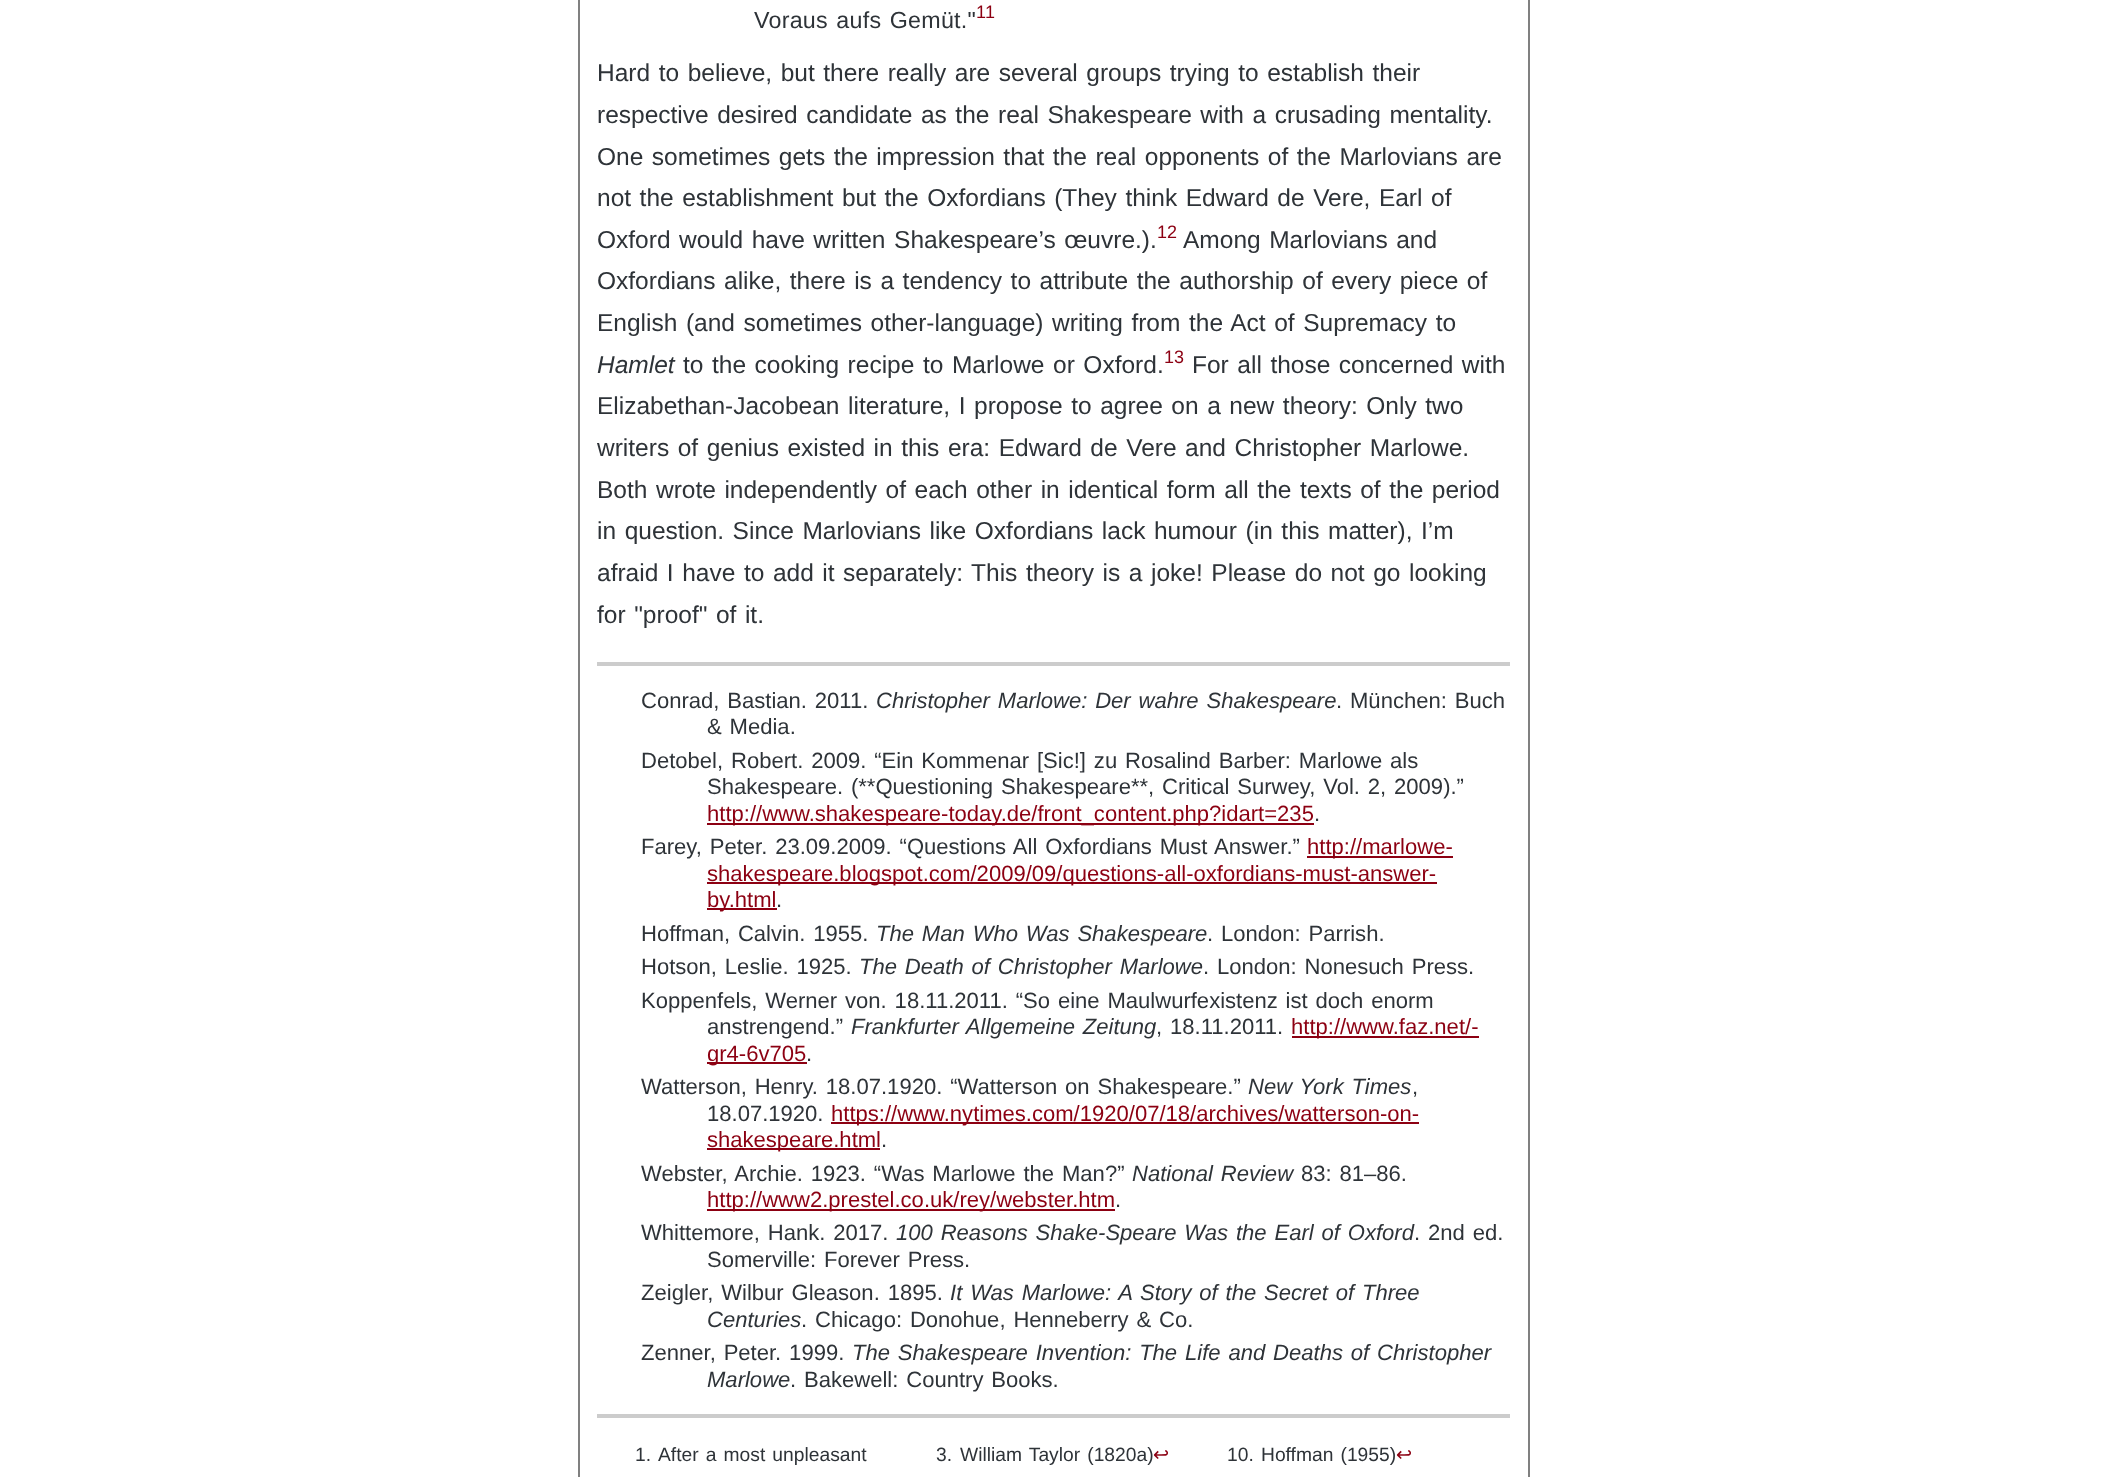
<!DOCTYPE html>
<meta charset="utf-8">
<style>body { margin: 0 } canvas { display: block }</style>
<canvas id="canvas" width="2107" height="1477"></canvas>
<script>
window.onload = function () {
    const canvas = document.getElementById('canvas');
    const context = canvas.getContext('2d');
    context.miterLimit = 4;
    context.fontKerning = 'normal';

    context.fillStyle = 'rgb(255, 255, 255)';
    context.fillRect(0, 0, 2107, 1477);
    context.fillStyle = 'rgb(128, 128, 128)';
    context.fillRect(1528, 0, 2, 1477);
    context.fillRect(578, 0, 2, 1477);
    context.fillStyle = 'rgb(204, 204, 204)';
    context.fillRect(597, 662, 913, 4);
    context.fillStyle = 'rgb(140, 0, 18)';
    context.fillRect(707, 823, 607, 2);
    context.fillRect(1307, 856, 146, 2);
    context.fillRect(707, 882, 730, 2);
    context.fillRect(707, 908, 70, 2);
    context.fillRect(1292, 1036, 187, 2);
    context.fillRect(707, 1062, 100, 2);
    context.fillRect(831, 1122, 588, 2);
    context.fillRect(707, 1148, 173, 2);
    context.fillRect(707, 1209, 408, 2);
    context.fillStyle = 'rgb(204, 204, 204)';
    context.fillRect(597, 1414, 913, 4);
    context.letterSpacing = '0.25px';
    context.wordSpacing = '1.75px';
    context.font = '23.25px Liberation Sans';
    context.fillStyle = 'rgb(46, 51, 56)';
    context.fillText('Voraus aufs Gemüt."', 754, 28);
    context.wordSpacing = '0px';
    context.font = '18px Liberation Sans';
    context.fillStyle = 'rgb(140, 0, 18)';
    context.fillText('11', 976, 18);
    context.letterSpacing = '0px';
    context.wordSpacing = '1.75px';
    context.font = '24.5px Liberation Sans';
    context.fillStyle = 'rgb(46, 51, 56)';
    context.fillText('Hard to believe, but there really are several groups trying to establish their', 597, 81);
    context.fillText('respective desired candidate as the real Shakespeare with a crusading mentality.', 597, 123);
    context.fillText('One sometimes gets the impression that the real opponents of the Marlovians are', 597, 165);
    context.fillText('not the establishment but the Oxfordians (They think Edward de Vere, Earl of', 597, 206);
    context.fillText('Oxford would have written Shakespeare’s œuvre.).', 597, 248);
    context.wordSpacing = '0px';
    context.font = '18px Liberation Sans';
    context.fillStyle = 'rgb(140, 0, 18)';
    context.fillText('12', 1157, 238);
    context.wordSpacing = '1.75px';
    context.font = '24.5px Liberation Sans';
    context.fillStyle = 'rgb(46, 51, 56)';
    context.fillText('Among Marlovians and', 1183, 248);
    context.fillText('Oxfordians alike, there is a tendency to attribute the authorship of every piece of', 597, 289);
    context.fillText('English (and sometimes other-language) writing from the Act of Supremacy to', 597, 331);
    context.wordSpacing = '0px';
    context.font = 'italic 24.5px Liberation Sans';
    context.fillText('Hamlet', 597, 373);
    context.wordSpacing = '1.75px';
    context.font = '24.5px Liberation Sans';
    context.fillText('to the cooking recipe to Marlowe or Oxford.', 683, 373);
    context.wordSpacing = '0px';
    context.font = '18px Liberation Sans';
    context.fillStyle = 'rgb(140, 0, 18)';
    context.fillText('13', 1164, 363);
    context.wordSpacing = '1.75px';
    context.font = '24.5px Liberation Sans';
    context.fillStyle = 'rgb(46, 51, 56)';
    context.fillText('For all those concerned with', 1192, 373);
    context.fillText('Elizabethan-Jacobean literature, I propose to agree on a new theory: Only two', 597, 414);
    context.fillText('writers of genius existed in this era: Edward de Vere and Christopher Marlowe.', 597, 456);
    context.fillText('Both wrote independently of each other in identical form all the texts of the period', 597, 498);
    context.fillText('in question. Since Marlovians like Oxfordians lack humour (in this matter), I’m', 597, 539);
    context.fillText('afraid I have to add it separately: This theory is a joke! Please do not go looking', 597, 581);
    context.fillText('for "proof" of it.', 597, 623);
    context.font = '22.05px Liberation Sans';
    context.fillText('Conrad, Bastian. 2011.', 641, 708);
    context.font = 'italic 22.05px Liberation Sans';
    context.fillText('Christopher Marlowe: Der wahre Shakespeare', 876, 708);
    context.font = '22.05px Liberation Sans';
    context.fillText('. München: Buch', 1336, 708);
    context.fillText('& Media.', 707, 734);
    context.fillText('Detobel, Robert. 2009. “Ein Kommenar [Sic!] zu Rosalind Barber: Marlowe als', 641, 768);
    context.fillText('Shakespeare. (**Questioning Shakespeare**, Critical Surwey, Vol. 2, 2009).”', 707, 794);
    context.wordSpacing = '0px';
    context.fillStyle = 'rgb(140, 0, 18)';
    context.fillText('http://www.shakespeare-today.de/front_content.php?idart=235', 707, 821);
    context.fillStyle = 'rgb(46, 51, 56)';
    context.fillText('.', 1314, 821);
    context.wordSpacing = '1.75px';
    context.fillText('Farey, Peter. 23.09.2009. “Questions All Oxfordians Must Answer.”', 641, 854);
    context.wordSpacing = '0px';
    context.fillStyle = 'rgb(140, 0, 18)';
    context.fillText('http://marlowe-', 1307, 854);
    context.fillText('shakespeare.blogspot.com/2009/09/questions-all-oxfordians-must-answer-', 707, 881);
    context.fillText('by.html', 707, 907);
    context.fillStyle = 'rgb(46, 51, 56)';
    context.fillText('.', 776, 907);
    context.wordSpacing = '1.75px';
    context.fillText('Hoffman, Calvin. 1955.', 641, 941);
    context.font = 'italic 22.05px Liberation Sans';
    context.fillText('The Man Who Was Shakespeare', 876, 941);
    context.font = '22.05px Liberation Sans';
    context.fillText('. London: Parrish.', 1207, 941);
    context.fillText('Hotson, Leslie. 1925.', 641, 974);
    context.font = 'italic 22.05px Liberation Sans';
    context.fillText('The Death of Christopher Marlowe', 859, 974);
    context.font = '22.05px Liberation Sans';
    context.fillText('. London: Nonesuch Press.', 1203, 974);
    context.fillText('Koppenfels, Werner von. 18.11.2011. “So eine Maulwurfexistenz ist doch enorm', 641, 1008);
    context.wordSpacing = '0px';
    context.fillText('anstrengend.”', 707, 1034);
    context.wordSpacing = '1.75px';
    context.font = 'italic 22.05px Liberation Sans';
    context.fillText('Frankfurter Allgemeine Zeitung', 851, 1034);
    context.font = '22.05px Liberation Sans';
    context.fillText(', 18.11.2011.', 1156, 1034);
    context.wordSpacing = '0px';
    context.fillStyle = 'rgb(140, 0, 18)';
    context.fillText('http://www.faz.net/-', 1291, 1034);
    context.fillText('gr4-6v705', 707, 1061);
    context.fillStyle = 'rgb(46, 51, 56)';
    context.fillText('.', 806, 1061);
    context.wordSpacing = '1.75px';
    context.fillText('Watterson, Henry. 18.07.1920. “Watterson on Shakespeare.”', 641, 1094);
    context.font = 'italic 22.05px Liberation Sans';
    context.fillText('New York Times', 1248, 1094);
    context.wordSpacing = '0px';
    context.font = '22.05px Liberation Sans';
    context.fillText(',', 1412, 1094);
    context.fillText('18.07.1920.', 707, 1121);
    context.fillStyle = 'rgb(140, 0, 18)';
    context.fillText('https://www.nytimes.com/1920/07/18/archives/watterson-on-', 831, 1121);
    context.fillText('shakespeare.html', 707, 1147);
    context.fillStyle = 'rgb(46, 51, 56)';
    context.fillText('.', 881, 1147);
    context.wordSpacing = '1.75px';
    context.fillText('Webster, Archie. 1923. “Was Marlowe the Man?”', 641, 1181);
    context.font = 'italic 22.05px Liberation Sans';
    context.fillText('National Review', 1132, 1181);
    context.font = '22.05px Liberation Sans';
    context.fillText('83: 81–86.', 1301, 1181);
    context.wordSpacing = '0px';
    context.fillStyle = 'rgb(140, 0, 18)';
    context.fillText('http://www2.prestel.co.uk/rey/webster.htm', 707, 1207);
    context.fillStyle = 'rgb(46, 51, 56)';
    context.fillText('.', 1115, 1207);
    context.wordSpacing = '1.75px';
    context.fillText('Whittemore, Hank. 2017.', 641, 1240);
    context.font = 'italic 22.05px Liberation Sans';
    context.fillText('100 Reasons Shake-Speare Was the Earl of Oxford', 896, 1240);
    context.font = '22.05px Liberation Sans';
    context.fillText('. 2nd ed.', 1414, 1240);
    context.fillText('Somerville: Forever Press.', 707, 1267);
    context.fillText('Zeigler, Wilbur Gleason. 1895.', 641, 1300);
    context.font = 'italic 22.05px Liberation Sans';
    context.fillText('It Was Marlowe: A Story of the Secret of Three', 950, 1300);
    context.wordSpacing = '0px';
    context.fillText('Centuries', 707, 1327);
    context.wordSpacing = '1.75px';
    context.font = '22.05px Liberation Sans';
    context.fillText('. Chicago: Donohue, Henneberry & Co.', 801, 1327);
    context.fillText('Zenner, Peter. 1999.', 641, 1360);
    context.font = 'italic 22.05px Liberation Sans';
    context.fillText('The Shakespeare Invention: The Life and Deaths of Christopher', 852, 1360);
    context.wordSpacing = '0px';
    context.fillText('Marlowe', 707, 1387);
    context.wordSpacing = '1.75px';
    context.font = '22.05px Liberation Sans';
    context.fillText('. Bakewell: Country Books.', 790, 1387);
    context.wordSpacing = '0px';
    context.font = '19.25px Liberation Sans';
    context.fillText('1.', 635, 1461);
    context.wordSpacing = '1.75px';
    context.fillText('After a most unpleasant', 658, 1461);
    context.wordSpacing = '0px';
    context.fillText('3.', 936, 1461);
    context.wordSpacing = '1.75px';
    context.fillText('William Taylor (1820a)', 960, 1461);
    context.wordSpacing = '0px';
    context.font = '19.25px DejaVu Sans';
    context.fillStyle = 'rgb(140, 0, 18)';
    context.fillText('↩︎', 1153, 1461);
    context.font = '19.25px Liberation Sans';
    context.fillStyle = 'rgb(46, 51, 56)';
    context.fillText('10.', 1227, 1461);
    context.wordSpacing = '1.75px';
    context.fillText('Hoffman (1955)', 1261, 1461);
    context.wordSpacing = '0px';
    context.font = '19.25px DejaVu Sans';
    context.fillStyle = 'rgb(140, 0, 18)';
    context.fillText('↩︎', 1396, 1461);
};
</script>
